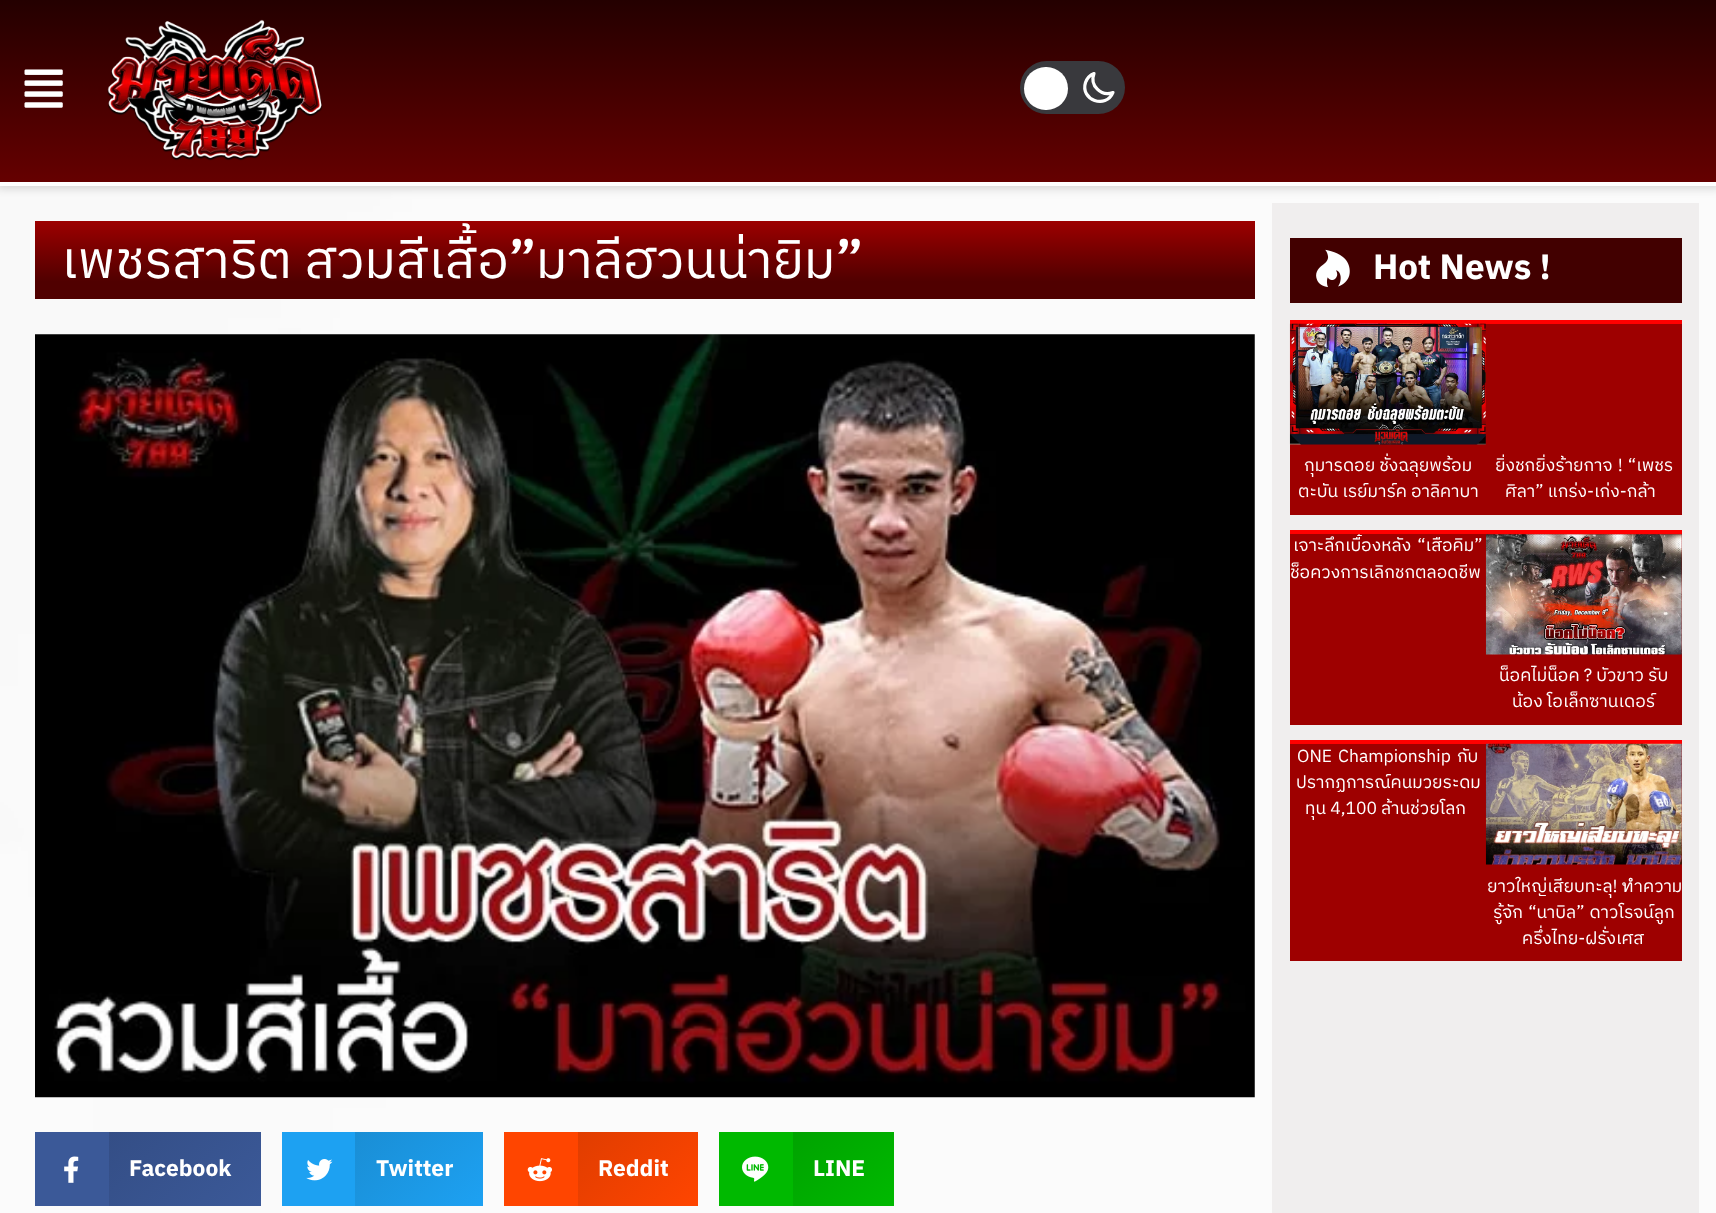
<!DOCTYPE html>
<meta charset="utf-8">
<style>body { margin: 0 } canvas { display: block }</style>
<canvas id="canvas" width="1716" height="1213"></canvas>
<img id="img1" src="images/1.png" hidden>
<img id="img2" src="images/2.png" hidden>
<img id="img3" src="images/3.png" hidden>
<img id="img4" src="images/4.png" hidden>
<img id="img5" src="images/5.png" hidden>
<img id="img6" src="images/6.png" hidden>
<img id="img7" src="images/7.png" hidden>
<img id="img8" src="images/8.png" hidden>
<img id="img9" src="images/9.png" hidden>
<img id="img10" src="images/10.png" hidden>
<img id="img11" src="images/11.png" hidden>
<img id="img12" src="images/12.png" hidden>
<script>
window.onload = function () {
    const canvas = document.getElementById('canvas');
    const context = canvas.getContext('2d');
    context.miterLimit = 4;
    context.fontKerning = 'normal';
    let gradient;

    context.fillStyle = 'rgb(255, 255, 255)';
    context.fillRect(0, 0, 1716, 1213);
    context.drawImage(document.getElementById('img1'), 0, 186, 1716, 1027);
    context.fillStyle = 'rgba(0, 0, 0, 0.5)';
    context.filter = 'blur(4.5px)';
    context.beginPath();
    context.rect(-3, -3, 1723, 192);
    context.fill();
    context.filter = 'none';
    gradient = context.createLinearGradient(858, 0, 858, 182);
    gradient.addColorStop(0, 'rgb(36, 0, 0)');
    gradient.addColorStop(1, 'rgb(101, 0, 0)');
    context.fillStyle = gradient;
    context.fillRect(0, 0, 1716, 182);
    context.fillStyle = 'rgb(255, 255, 255)';
    context.fillRect(0, 182, 1716, 4);
    context.drawImage(document.getElementById('img2'), 24, 69, 39, 39);
    context.drawImage(document.getElementById('img3'), 107, 19, 216, 142);
    context.fillStyle = 'rgb(57, 57, 61)';
    context.beginPath();
    context.roundRect(1020, 61, 105, 53, 26.5);
    context.fill();
    context.fillStyle = 'rgb(255, 255, 255)';
    context.beginPath();
    context.roundRect(1024, 67, 44, 43, 21.5);
    context.fill();
    context.beginPath();
    context.moveTo(1113, 92.5);
    context.bezierCurveTo(1101, 97, 1089.5, 85.5, 1094, 73.5);
    context.bezierCurveTo(1090, 75, 1087, 78.5, 1085.5, 82.5);
    context.bezierCurveTo(1080, 100, 1106, 109.5, 1113, 92.5);
    context.closePath();
    context.strokeStyle = 'rgb(255, 255, 255)';
    context.lineWidth = 3.2;
    context.lineCap = 'round';
    context.lineJoin = 'round';
    context.stroke();
    context.fillStyle = 'rgba(255, 255, 255, 0.71)';
    context.fillRect(0, 186, 1716, 1027);
    gradient = context.createLinearGradient(645, 220, 645, 299);
    gradient.addColorStop(0, 'rgb(158, 0, 0)');
    gradient.addColorStop(0.78, 'rgb(80, 0, 0)');
    context.fillStyle = gradient;
    context.fillRect(35, 221, 1220, 78);
    context.drawImage(document.getElementById('img4'), 35, 334, 1220, 764);
    context.fillStyle = 'rgb(59, 89, 152)';
    context.fillRect(35, 1132, 74, 74);
    context.drawImage(document.getElementById('img5'), 64, 1156, 15, 27);
    gradient = context.createLinearGradient(128, 1113, 241, 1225);
    gradient.addColorStop(0, 'rgb(52, 78, 134)');
    gradient.addColorStop(1, 'rgb(59, 89, 152)');
    context.fillStyle = gradient;
    context.fillRect(109, 1132, 152, 74);
    context.fillStyle = 'rgb(29, 161, 242)';
    context.fillRect(282, 1132, 73, 74);
    context.drawImage(document.getElementById('img6'), 306, 1159, 27, 22);
    gradient = context.createLinearGradient(369, 1119, 469, 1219);
    gradient.addColorStop(0, 'rgb(26, 142, 213)');
    gradient.addColorStop(1, 'rgb(29, 161, 242)');
    context.fillStyle = gradient;
    context.fillRect(355, 1132, 128, 74);
    context.fillStyle = 'rgb(255, 69, 0)';
    context.fillRect(504, 1132, 74, 74);
    context.drawImage(document.getElementById('img7'), 527, 1158, 25, 24);
    gradient = context.createLinearGradient(589, 1120, 686, 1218);
    gradient.addColorStop(0, 'rgb(224, 61, 0)');
    gradient.addColorStop(1, 'rgb(255, 69, 0)');
    context.fillStyle = gradient;
    context.fillRect(578, 1132, 120, 74);
    context.fillStyle = 'rgb(0, 185, 0)';
    context.fillRect(719, 1132, 74, 74);
    context.drawImage(document.getElementById('img8'), 742, 1156, 27, 26);
    gradient = context.createLinearGradient(800, 1125, 887, 1213);
    gradient.addColorStop(0, 'rgb(0, 163, 0)');
    gradient.addColorStop(1, 'rgb(0, 185, 0)');
    context.fillStyle = gradient;
    context.fillRect(793, 1132, 101, 74);
    context.fillStyle = 'rgb(240, 238, 238)';
    context.fillRect(1272, 203, 427, 1010);
    gradient = context.createLinearGradient(1325, 363, 1647, 177);
    gradient.addColorStop(1, 'rgb(66, 0, 0)');
    gradient.addColorStop(1, 'rgb(255, 255, 255)');
    context.fillStyle = gradient;
    context.fillRect(1290, 238, 392, 65);
    context.drawImage(document.getElementById('img9'), 1316, 249, 34, 39);
    context.fillStyle = 'rgb(158, 0, 0)';
    context.fillRect(1290, 324, 392, 191);
    context.fillStyle = 'rgb(255, 0, 0)';
    context.fillRect(1290, 320, 392, 4);
    context.drawImage(document.getElementById('img10'), 1289, 323, 197, 122);
    context.fillStyle = 'rgb(158, 0, 0)';
    context.fillRect(1290, 534, 392, 191);
    context.fillStyle = 'rgb(255, 0, 0)';
    context.fillRect(1290, 530, 392, 4);
    context.drawImage(document.getElementById('img11'), 1485, 534, 197, 121);
    context.fillStyle = 'rgb(158, 0, 0)';
    context.fillRect(1290, 744, 392, 217);
    context.fillStyle = 'rgb(255, 0, 0)';
    context.fillRect(1290, 740, 392, 4);
    context.drawImage(document.getElementById('img12'), 1485, 743, 197, 122);
    context.font = '52.5px IBM Plex Sans Thai';
    context.fillStyle = 'rgb(255, 255, 255)';
    context.fillText('เพชรสาริต สวมสีเสื้อ', 61, 278);
    context.font = '600 52.5px IBM Plex Sans Thai';
    context.fillText('”', 509, 278);
    context.font = '52.5px IBM Plex Sans Thai';
    context.fillText('มาลีฮวนน่ายิม', 536, 278);
    context.font = '600 52.5px IBM Plex Sans Thai';
    context.fillText('”', 836, 278);
    context.font = 'bold 22.75px IBM Plex Sans Thai';
    context.fillText('Facebook', 129, 1176);
    context.fillText('Twitter', 376, 1176);
    context.fillText('Reddit', 598, 1176);
    context.fillText('LINE', 813, 1176);
    context.font = 'bold 35px IBM Plex Sans Thai';
    context.fillText('Hot News !', 1373, 279);
    context.font = '17.5px IBM Plex Sans Thai';
    context.fillText('กุมารดอย ชั่งฉลุยพร้อม', 1304, 471);
    context.fillText('ตะบัน เรย์มาร์ค อาลิคาบา', 1298, 497);
    context.wordSpacing = '1px';
    context.fillText('ยิ่งชกยิ่งร้ายกาจ ! “เพชร', 1495, 471);
    context.wordSpacing = '0px';
    context.fillText('ศิลา” แกร่ง-เก่ง-กล้า', 1505, 497);
    context.save();
    context.beginPath();
    context.rect(1290, 534, 196, 191);
    context.clip();
    context.wordSpacing = '2px';
    context.fillText('เจาะลึกเบื้องหลัง “เสือคิม”', 1293, 551);
    context.wordSpacing = '0px';
    context.fillText('ช็อควงการเลิกชกตลอดชีพ', 1290, 578);
    context.restore();
    context.fillText('น็อคไม่น็อค ? บัวขาว รับ', 1499, 681);
    context.fillText('น้อง โอเล็กซานเดอร์', 1512, 707);
    context.wordSpacing = '2px';
    context.fillText('ONE Championship กับ', 1297, 762);
    context.wordSpacing = '0px';
    context.fillText('ปรากฏการณ์คนมวยระดม', 1296, 788);
    context.fillText('ทุน 4,100 ล้านช่วยโลก', 1305, 814);
    context.fillText('ยาวใหญ่เสียบทะลุ! ทำความ', 1487, 892);
    context.wordSpacing = '1px';
    context.fillText('รู้จัก “นาบิล” ดาวโรจน์ลูก', 1493, 918);
    context.wordSpacing = '0px';
    context.fillText('ครึ่งไทย-ฝรั่งเศส', 1522, 944);
};
</script>
